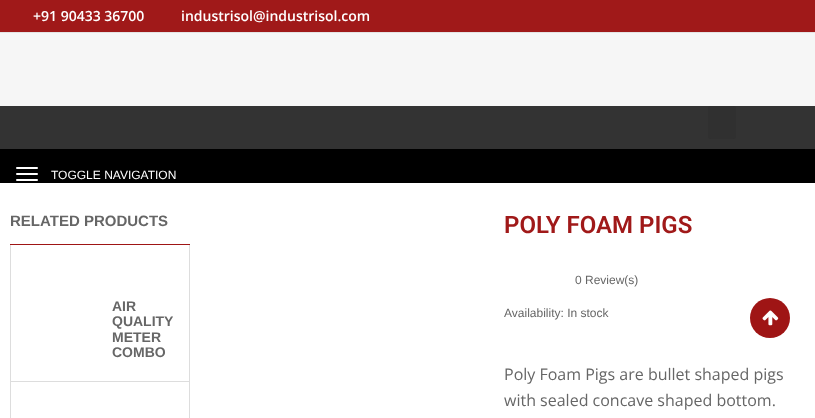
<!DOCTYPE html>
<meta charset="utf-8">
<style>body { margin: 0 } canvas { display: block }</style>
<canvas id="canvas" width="815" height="418"></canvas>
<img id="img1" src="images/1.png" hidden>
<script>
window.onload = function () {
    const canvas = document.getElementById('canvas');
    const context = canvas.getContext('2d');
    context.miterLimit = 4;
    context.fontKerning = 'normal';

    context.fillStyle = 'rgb(255, 255, 255)';
    context.fillRect(0, 0, 815, 418);
    context.fillStyle = 'rgb(246, 246, 246)';
    context.fillRect(0, 33, 815, 73);
    context.fillStyle = 'rgb(160, 25, 25)';
    context.fillRect(0, 0, 815, 32);
    context.fillStyle = 'rgb(228, 228, 228)';
    context.fillRect(0, 32, 815, 1);
    context.fillStyle = 'rgb(51, 51, 51)';
    context.fillRect(0, 106, 815, 43);
    context.fillStyle = 'rgb(48, 48, 48)';
    context.beginPath();
    context.roundRect(708, 106, 28, 33, 3);
    context.fill();
    context.fillStyle = 'rgb(0, 0, 0)';
    context.fillRect(0, 149, 815, 34);
    context.fillStyle = 'rgb(255, 255, 255)';
    context.beginPath();
    context.roundRect(16, 167, 22, 2, 1);
    context.fill();
    context.beginPath();
    context.roundRect(16, 173, 22, 2, 1);
    context.fill();
    context.beginPath();
    context.roundRect(16, 179, 22, 2, 1);
    context.fill();
    context.fillStyle = 'rgb(159, 21, 21)';
    context.fillRect(10, 244, 180, 1);
    context.fillStyle = 'rgb(221, 221, 221)';
    context.fillRect(189, 245, 1, 173);
    context.fillRect(10, 245, 1, 173);
    context.fillRect(11, 381, 178, 1);
    context.fillStyle = 'rgb(159, 21, 21)';
    context.beginPath();
    context.arc(770, 318, 20, 0, 2 * Math.PI);
    context.fill();
    context.drawImage(document.getElementById('img1'), 762, 310, 17, 16);
    context.font = '600 14px Open Sans';
    context.fillStyle = 'rgb(255, 255, 255)';
    context.fillText('+91 90433 36700', 33, 21);
    context.fillText('industrisol@industrisol.com', 181, 21);
    context.font = '12px Liberation Sans';
    context.fillText('TOGGLE NAVIGATION', 51, 179);
    context.font = 'bold 15px Liberation Sans';
    context.fillStyle = 'rgb(102, 102, 102)';
    context.fillText('RELATED PRODUCTS', 10, 226);
    context.font = 'bold 14px Liberation Sans';
    context.fillText('AIR', 112, 311);
    context.fillText('QUALITY', 112, 326);
    context.fillText('METER', 112, 342);
    context.fillText('COMBO', 112, 357);
    context.font = '600 24px Roboto';
    context.fillStyle = 'rgb(160, 25, 25)';
    context.fillText('POLY FOAM PIGS', 504, 233);
    context.font = '12px Liberation Sans';
    context.fillStyle = 'rgb(102, 102, 102)';
    context.fillText('0 Review(s)', 575, 284);
    context.fillText('Availability: In stock', 504, 317);
    context.font = '16px Open Sans';
    context.fillText('Poly Foam Pigs are bullet shaped pigs', 504, 380);
    context.fillText('with sealed concave shaped bottom.', 504, 406);
};
</script>
